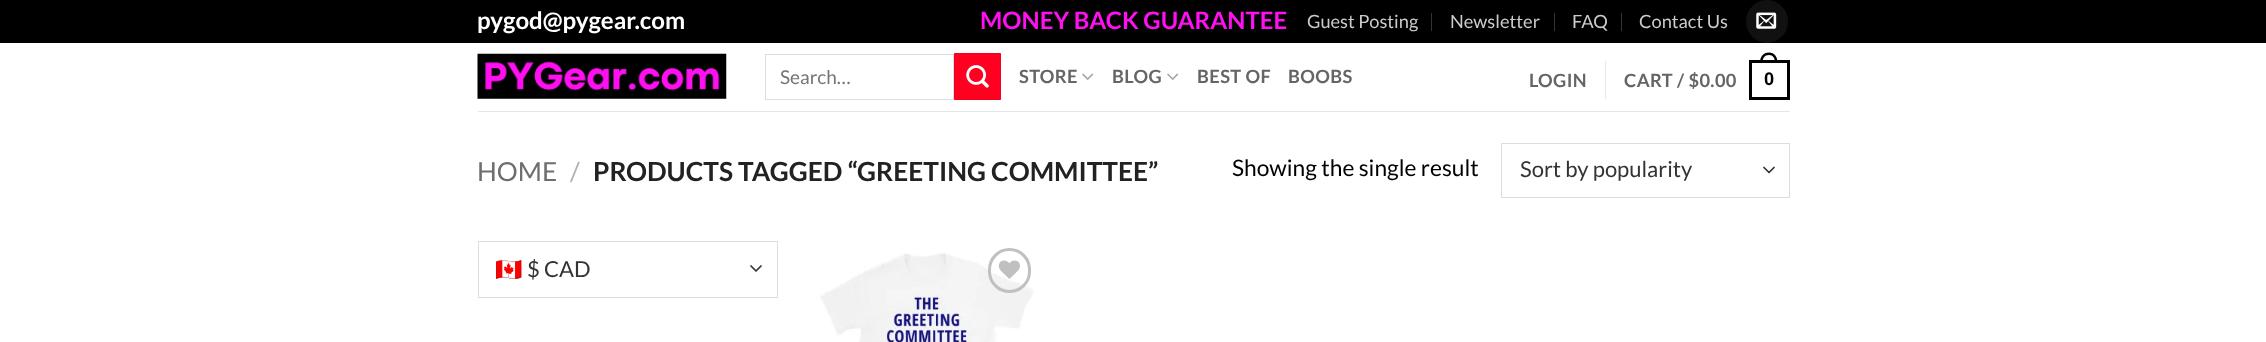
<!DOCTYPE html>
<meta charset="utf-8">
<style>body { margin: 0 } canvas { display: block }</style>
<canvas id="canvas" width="2266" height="342"></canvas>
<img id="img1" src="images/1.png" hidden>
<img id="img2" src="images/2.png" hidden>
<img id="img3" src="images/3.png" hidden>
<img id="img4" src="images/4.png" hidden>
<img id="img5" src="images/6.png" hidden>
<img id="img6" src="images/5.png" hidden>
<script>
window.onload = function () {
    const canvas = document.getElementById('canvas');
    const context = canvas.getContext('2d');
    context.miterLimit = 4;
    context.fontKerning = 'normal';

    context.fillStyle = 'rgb(255, 255, 255)';
    context.fillRect(0, 0, 2266, 342);
    context.fillStyle = 'rgb(0, 0, 0)';
    context.fillRect(0, 0, 2266, 43);
    context.fillStyle = 'rgb(51, 51, 51)';
    context.fillRect(1431, 13, 1, 18);
    context.fillRect(1554, 13, 1, 18);
    context.fillRect(1621, 13, 1, 18);
    context.fillStyle = 'rgb(17, 17, 17)';
    context.beginPath();
    context.roundRect(1746.5, 0.5, 41, 42, 20.5);
    context.fill();
    context.strokeStyle = 'rgb(17, 17, 17)';
    context.stroke();
    context.drawImage(document.getElementById('img1'), 1756, 12, 21, 17);
    context.drawImage(document.getElementById('img2'), 477, 53, 250, 46);
    context.strokeStyle = 'rgb(221, 221, 221)';
    context.strokeRect(765.5, 54.5, 188, 45);
    context.fillStyle = 'rgb(255, 0, 33)';
    context.beginPath();
    context.rect(954.5, 53.5, 46, 46);
    context.fill();
    context.strokeStyle = 'rgb(242, 0, 31)';
    context.stroke();
    context.drawImage(document.getElementById('img3'), 966, 65, 23, 23);
    context.drawImage(document.getElementById('img4'), 1082, 73, 12, 7);
    context.drawImage(document.getElementById('img4'), 1167, 73, 12, 7);
    context.fillStyle = 'rgb(230, 230, 230)';
    context.fillRect(1605, 61, 1, 38);
    context.strokeStyle = 'rgb(0, 0, 0)';
    context.lineWidth = 3;
    context.strokeRect(1750.5, 61.5, 38, 37);
    context.fillStyle = 'rgb(0, 0, 0)';
    context.beginPath();
    context.moveTo(1769, 52.5);
    context.bezierCurveTo(1774.5, 52.5, 1777.5, 57, 1777.5, 62.5);
    context.lineTo(1760, 62.5);
    context.bezierCurveTo(1760, 57, 1763, 52.5, 1769, 52.5);
    context.closePath();
    context.moveTo(1769, 55);
    context.bezierCurveTo(1773, 55, 1775, 58.5, 1775, 62.5);
    context.lineTo(1762.5, 62.5);
    context.bezierCurveTo(1762.5, 58.5, 1764.5, 55, 1769, 55);
    context.closePath();
    context.fill('evenodd');
    context.fillStyle = 'rgb(230, 230, 230)';
    context.fillRect(478, 111, 1312, 1);
    context.beginPath();
    context.moveTo(1764, 167.5);
    context.lineTo(1769, 172.5);
    context.lineTo(1774, 167.5);
    context.strokeStyle = 'rgb(51, 51, 51)';
    context.lineWidth = 1.7;
    context.lineCap = 'round';
    context.lineJoin = 'round';
    context.stroke();
    context.strokeStyle = 'rgb(221, 221, 221)';
    context.lineWidth = 1;
    context.lineJoin = 'miter';
    context.strokeRect(1501.5, 143.5, 288, 54);
    context.beginPath();
    context.moveTo(751, 266);
    context.lineTo(756, 271);
    context.lineTo(761, 266);
    context.strokeStyle = 'rgb(51, 51, 51)';
    context.lineWidth = 1.7;
    context.lineJoin = 'round';
    context.stroke();
    context.strokeStyle = 'rgb(221, 221, 221)';
    context.lineWidth = 1;
    context.lineJoin = 'miter';
    context.strokeRect(478.5, 241.5, 299, 56);
    context.drawImage(document.getElementById('img5'), 820, 253, 214, 89);
    context.beginPath();
    context.roundRect(989.5, 249.5, 40, 42, 20);
    context.strokeStyle = 'rgb(192, 192, 192)';
    context.lineWidth = 3;
    context.stroke();
    context.drawImage(document.getElementById('img6'), 998, 260, 22, 19);
    context.font = 'bold 24px Lato';
    context.fillStyle = 'rgb(255, 255, 255)';
    context.fillText('pygod@pygear.com', 477, 29);
    context.fillStyle = 'rgb(255, 16, 240)';
    context.fillText('MONEY BACK GUARANTEE', 980, 29);
    context.font = '18.25px Lato';
    context.fillStyle = 'rgb(204, 204, 204)';
    context.fillText('Guest Posting', 1307, 28);
    context.fillText('Newsletter', 1450, 28);
    context.fillText('FAQ', 1572, 28);
    context.fillText('Contact Us', 1639, 28);
    context.font = '19px Lato';
    context.fillStyle = 'rgb(117, 117, 117)';
    context.fillText('Search…', 780, 84);
    context.letterSpacing = '0.4px';
    context.font = 'bold 18.25px Lato';
    context.fillStyle = 'rgb(101, 101, 101)';
    context.fillText('STORE', 1019, 83);
    context.fillText('BLOG', 1112, 83);
    context.fillText('BEST OF', 1197, 83);
    context.fillText('BOOBS', 1288, 83);
    context.fillText('LOGIN', 1529, 87);
    context.fillText('CART / $0.00', 1624, 87);
    context.font = 'bold 18.25px Liberation Sans';
    context.fillStyle = 'rgb(0, 0, 0)';
    context.fillText('0', 1764, 85);
    context.letterSpacing = '0px';
    context.font = '26.25px Lato';
    context.fillStyle = 'rgb(110, 110, 110)';
    context.fillText('HOME', 477, 181);
    context.fillStyle = 'rgb(178, 178, 178)';
    context.fillText('/', 570, 181);
    context.font = 'bold 26.25px Lato';
    context.fillStyle = 'rgb(34, 34, 34)';
    context.fillText('PRODUCTS TAGGED “GREETING COMMITTEE”', 593, 181);
    context.font = '22.75px Lato';
    context.fillStyle = 'rgb(0, 0, 0)';
    context.fillText('Showing the single result', 1232, 176);
    context.font = '22px Lato';
    context.fillStyle = 'rgb(51, 51, 51)';
    context.fillText('Sort by popularity', 1520, 177);
    context.save();
    context.beginPath();
    context.rect(495, 251, 250, 37);
    context.clip();
    context.font = '22px Noto Color Emoji';
    context.fillText('🇨🇦', 495, 277);
    context.restore();
    context.fillText('$ CAD', 527, 277);
};
</script>
